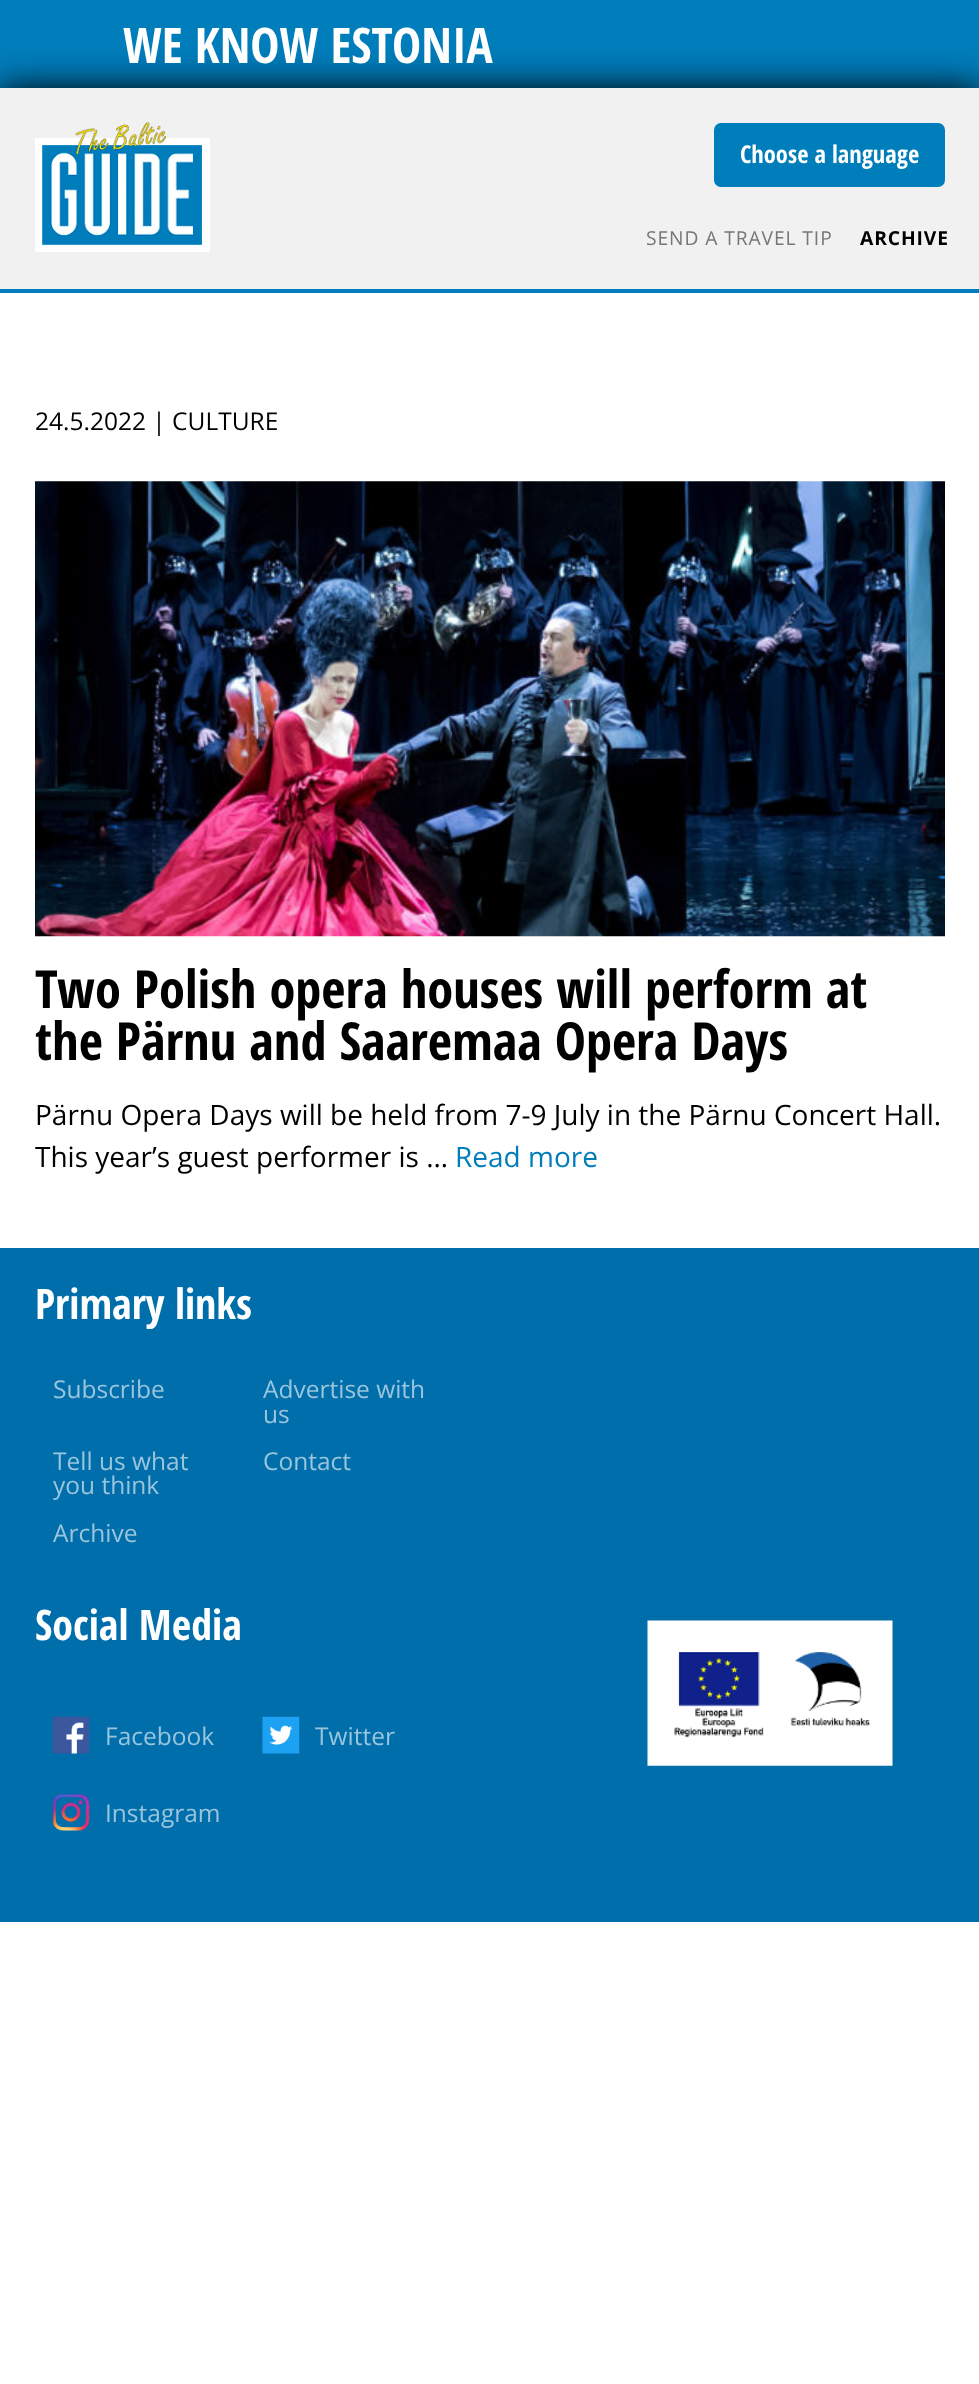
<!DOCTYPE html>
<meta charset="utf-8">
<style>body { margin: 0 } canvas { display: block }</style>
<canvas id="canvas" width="979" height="2384"></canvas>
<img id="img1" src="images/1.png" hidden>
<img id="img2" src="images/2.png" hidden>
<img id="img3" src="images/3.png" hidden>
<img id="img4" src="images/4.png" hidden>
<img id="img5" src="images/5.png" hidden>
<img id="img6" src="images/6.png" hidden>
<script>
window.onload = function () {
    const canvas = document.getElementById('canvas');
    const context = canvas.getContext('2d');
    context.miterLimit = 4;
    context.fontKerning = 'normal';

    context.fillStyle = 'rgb(255, 255, 255)';
    context.fillRect(0, 0, 979, 2384);
    context.fillStyle = 'rgb(0, 125, 187)';
    context.fillRect(0, 0, 979, 88);
    context.save();
    context.beginPath();
    context.rect(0, 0, 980, 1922);
    context.clip();
    context.fillStyle = 'rgb(0, 0, 0)';
    context.filter = 'blur(17.5px)';
    context.beginPath();
    context.rect(0, 88, 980, 1834);
    context.fill();
    context.filter = 'none';
    context.restore();
    context.fillStyle = 'rgb(255, 255, 255)';
    context.fillRect(0, 293, 979, 955);
    context.fillStyle = 'rgb(241, 241, 241)';
    context.fillRect(0, 88, 979, 201);
    context.fillStyle = 'rgb(0, 125, 188)';
    context.fillRect(0, 289, 979, 4);
    context.drawImage(document.getElementById('img1'), 35, 122, 175, 130);
    context.fillStyle = 'rgb(0, 125, 187)';
    context.beginPath();
    context.roundRect(714, 123, 231, 64, 7);
    context.fill();
    context.drawImage(document.getElementById('img2'), 35, 481, 910, 456);
    context.fillStyle = 'rgb(0, 110, 171)';
    context.fillRect(0, 1248, 979, 674);
    context.drawImage(document.getElementById('img3'), 52, 1716, 38, 38);
    context.drawImage(document.getElementById('img4'), 262, 1716, 38, 38);
    context.drawImage(document.getElementById('img5'), 52, 1793, 38, 38);
    context.drawImage(document.getElementById('img6'), 647, 1620, 246, 146);
    context.font = 'bold 49px Open Sans Condensed';
    context.fillStyle = 'rgb(255, 255, 255)';
    context.fillText('WE KNOW ESTONIA', 123, 63);
    context.font = 'bold 24.5px Open Sans Condensed';
    context.fillText('Choose a language', 740, 163);
    context.letterSpacing = '0.9px';
    context.font = '19.25px Open Sans';
    context.fillStyle = 'rgb(119, 119, 119)';
    context.fillText('SEND A TRAVEL TIP', 646, 245);
    context.font = 'bold 19.25px Open Sans';
    context.fillStyle = 'rgb(0, 0, 0)';
    context.fillText('ARCHIVE', 860, 245);
    context.letterSpacing = '0px';
    context.font = '24.5px Open Sans';
    context.fillText('24.5.2022 | CULTURE', 35, 430);
    context.font = 'bold 52.5px Open Sans Condensed';
    context.fillText('Two Polish opera houses will perform at', 35, 1008);
    context.fillText('the Pärnu and Saaremaa Opera Days', 35, 1060);
    context.font = '28px Open Sans';
    context.fillText('Pärnu Opera Days will be held from 7-9 July in the Pärnu Concert Hall.', 35, 1125);
    context.fillText('This year’s guest performer is …', 35, 1167);
    context.fillStyle = 'rgb(0, 125, 187)';
    context.fillText('Read more', 455, 1167);
    context.font = 'bold 42px Open Sans Condensed';
    context.fillStyle = 'rgb(255, 255, 255)';
    context.fillText('Primary links', 35, 1319);
    context.font = '24.5px Open Sans';
    context.fillStyle = 'rgb(153, 197, 221)';
    context.fillText('Subscribe', 53, 1398);
    context.fillText('Advertise with', 263, 1398);
    context.fillText('us', 263, 1423);
    context.fillText('Tell us what', 53, 1470);
    context.fillText('you think', 53, 1494);
    context.fillText('Contact', 263, 1470);
    context.fillText('Archive', 53, 1542);
    context.font = 'bold 42px Open Sans Condensed';
    context.fillStyle = 'rgb(255, 255, 255)';
    context.fillText('Social Media', 35, 1640);
    context.font = '24.5px Open Sans';
    context.fillStyle = 'rgb(153, 197, 221)';
    context.fillText('Facebook', 105, 1745);
    context.fillText('Twitter', 315, 1745);
    context.fillText('Instagram', 105, 1822);
};
</script>
